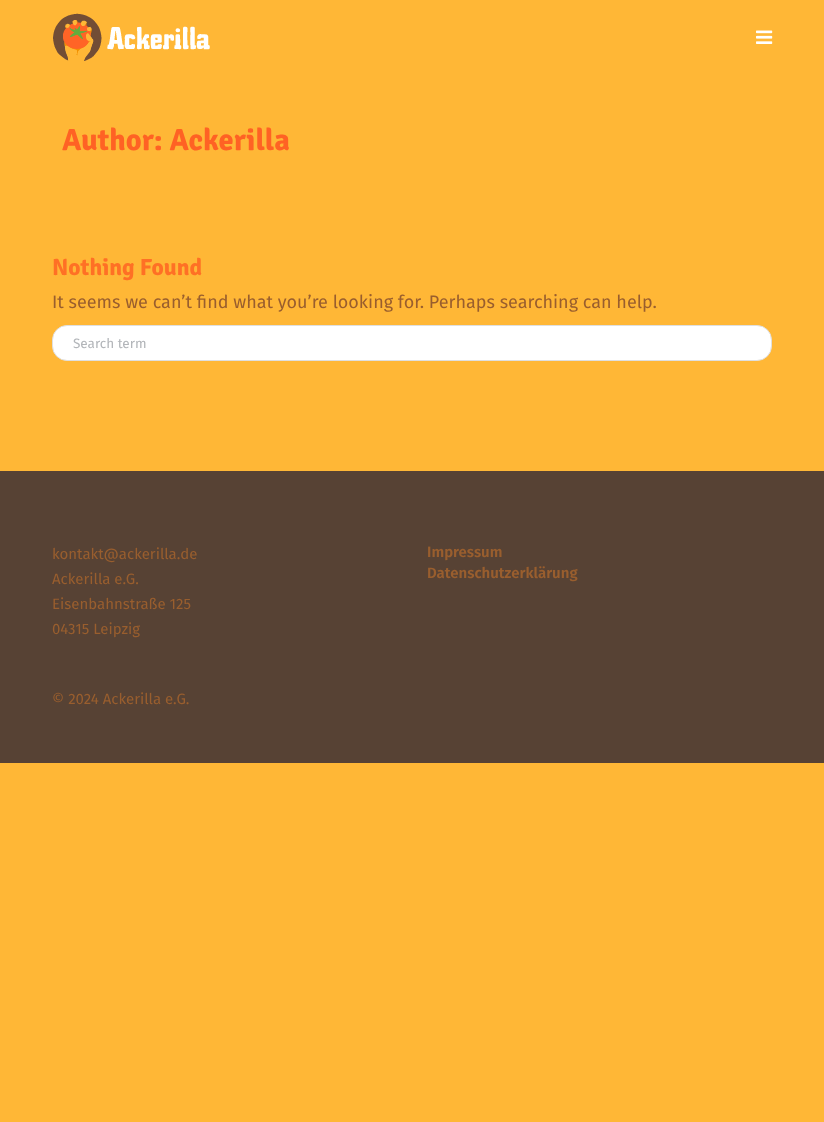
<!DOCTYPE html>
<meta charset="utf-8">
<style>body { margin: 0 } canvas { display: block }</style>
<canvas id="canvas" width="824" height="1122"></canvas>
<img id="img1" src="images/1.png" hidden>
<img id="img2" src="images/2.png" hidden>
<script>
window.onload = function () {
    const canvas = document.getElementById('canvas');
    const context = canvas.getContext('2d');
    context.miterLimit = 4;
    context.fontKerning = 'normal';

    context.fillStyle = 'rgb(255, 183, 54)';
    context.fillRect(0, 0, 824, 1122);
    context.drawImage(document.getElementById('img1'), 53, 13, 157, 48);
    context.drawImage(document.getElementById('img2'), 756, 30, 17, 14);
    context.fillStyle = 'rgb(255, 255, 255)';
    context.beginPath();
    context.roundRect(52.5, 325.5, 719, 35, 14.5);
    context.fill();
    context.strokeStyle = 'rgb(223, 223, 223)';
    context.stroke();
    context.fillStyle = 'rgb(87, 66, 52)';
    context.fillRect(0, 471, 824, 292);
    context.font = 'bold 30.5px Signika';
    context.fillStyle = 'rgb(255, 98, 36)';
    context.fillText('Author: Ackerilla', 62, 150);
    context.font = 'bold 23.5px Signika';
    context.fillStyle = 'rgb(255, 112, 37)';
    context.fillText('Nothing Found', 52, 275);
    context.font = '18px Fira Sans';
    context.fillStyle = 'rgb(153, 94, 46)';
    context.fillText('It seems we can’t find what you’re looking for. Perhaps searching can help.', 52, 308);
    context.font = '13.5px Fira Sans';
    context.fillStyle = 'rgb(178, 181, 185)';
    context.fillText('Search term', 73, 348);
    context.font = '15px Fira Sans';
    context.fillStyle = 'rgb(153, 94, 46)';
    context.fillText('kontakt@ackerilla.de', 52, 559);
    context.fillText('Ackerilla e.G.', 52, 584);
    context.fillText('Eisenbahnstraße 125', 52, 609);
    context.fillText('04315 Leipzig', 52, 634);
    context.font = '600 15px Fira Sans';
    context.fillText('Impressum', 427, 557);
    context.fillText('Datenschutzerklärung', 427, 578);
    context.font = '15px Fira Sans';
    context.fillText('© 2024 Ackerilla e.G.', 52, 704);
};
</script>
